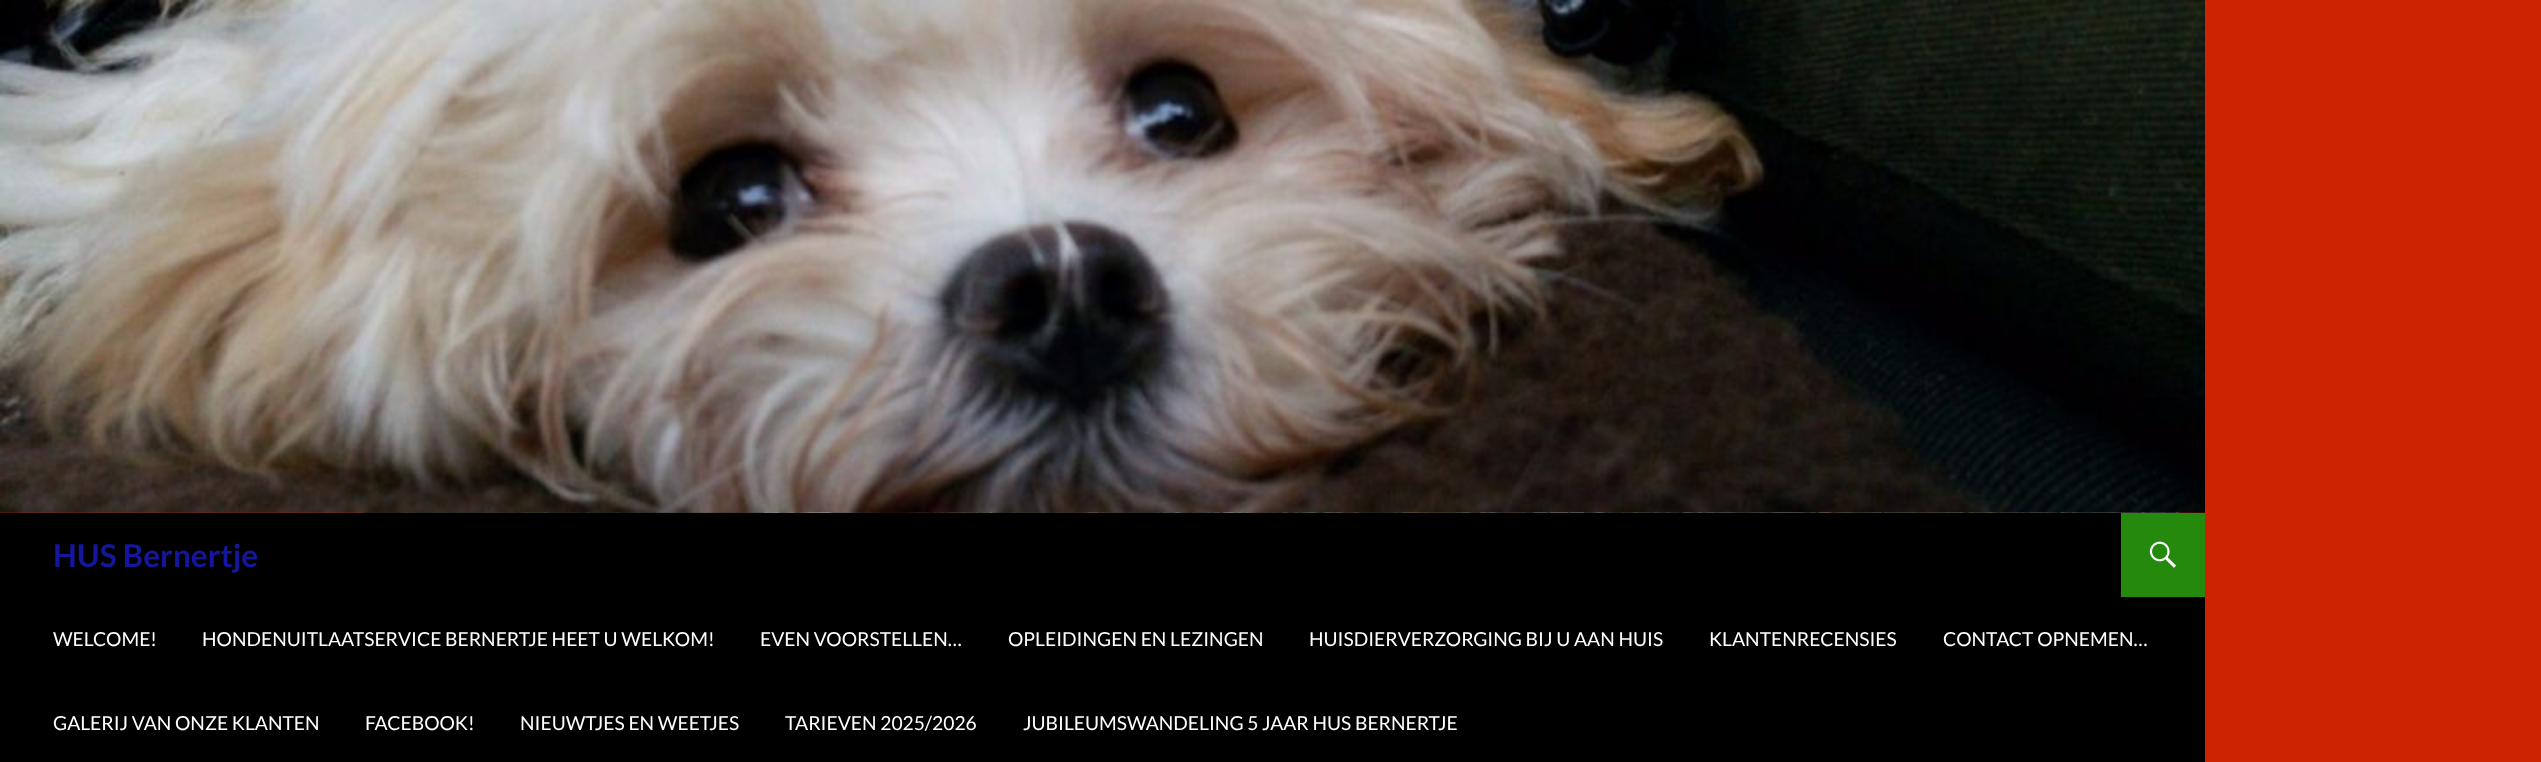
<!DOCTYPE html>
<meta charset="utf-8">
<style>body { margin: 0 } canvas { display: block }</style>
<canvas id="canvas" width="2541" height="762"></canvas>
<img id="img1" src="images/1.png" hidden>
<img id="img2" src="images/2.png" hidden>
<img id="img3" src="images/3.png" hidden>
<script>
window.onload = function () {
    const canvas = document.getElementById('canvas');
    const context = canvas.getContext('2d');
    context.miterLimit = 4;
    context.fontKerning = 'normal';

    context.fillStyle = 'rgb(204, 35, 2)';
    context.fillRect(0, 0, 2541, 762);
    context.drawImage(document.getElementById('img1'), 364, 512, 1815, 1);
    context.drawImage(document.getElementById('img2'), 0, 0, 2205, 513);
    context.fillStyle = 'rgb(0, 0, 0)';
    context.fillRect(0, 513, 2205, 249);
    context.fillStyle = 'rgb(36, 137, 13)';
    context.fillRect(2121, 513, 84, 84);
    context.drawImage(document.getElementById('img3'), 2149, 541, 27, 27);
    context.font = 'bold 31.5px Lato';
    context.fillStyle = 'rgb(20, 22, 158)';
    context.fillText('HUS Bernertje', 53, 567);
    context.font = '19.25px Lato';
    context.fillStyle = 'rgb(255, 255, 255)';
    context.fillText('WELCOME!', 53, 646);
    context.fillText('HONDENUITLAATSERVICE BERNERTJE HEET U WELKOM!', 202, 646);
    context.fillText('EVEN VOORSTELLEN…', 760, 646);
    context.fillText('OPLEIDINGEN EN LEZINGEN', 1008, 646);
    context.fillText('HUISDIERVERZORGING BIJ U AAN HUIS', 1309, 646);
    context.fillText('KLANTENRECENSIES', 1709, 646);
    context.fillText('CONTACT OPNEMEN…', 1943, 646);
    context.fillText('GALERIJ VAN ONZE KLANTEN', 53, 730);
    context.fillText('FACEBOOK!', 365, 730);
    context.fillText('NIEUWTJES EN WEETJES', 520, 730);
    context.fillText('TARIEVEN 2025/2026', 785, 730);
    context.fillText('JUBILEUMSWANDELING 5 JAAR HUS BERNERTJE', 1023, 730);
};
</script>
